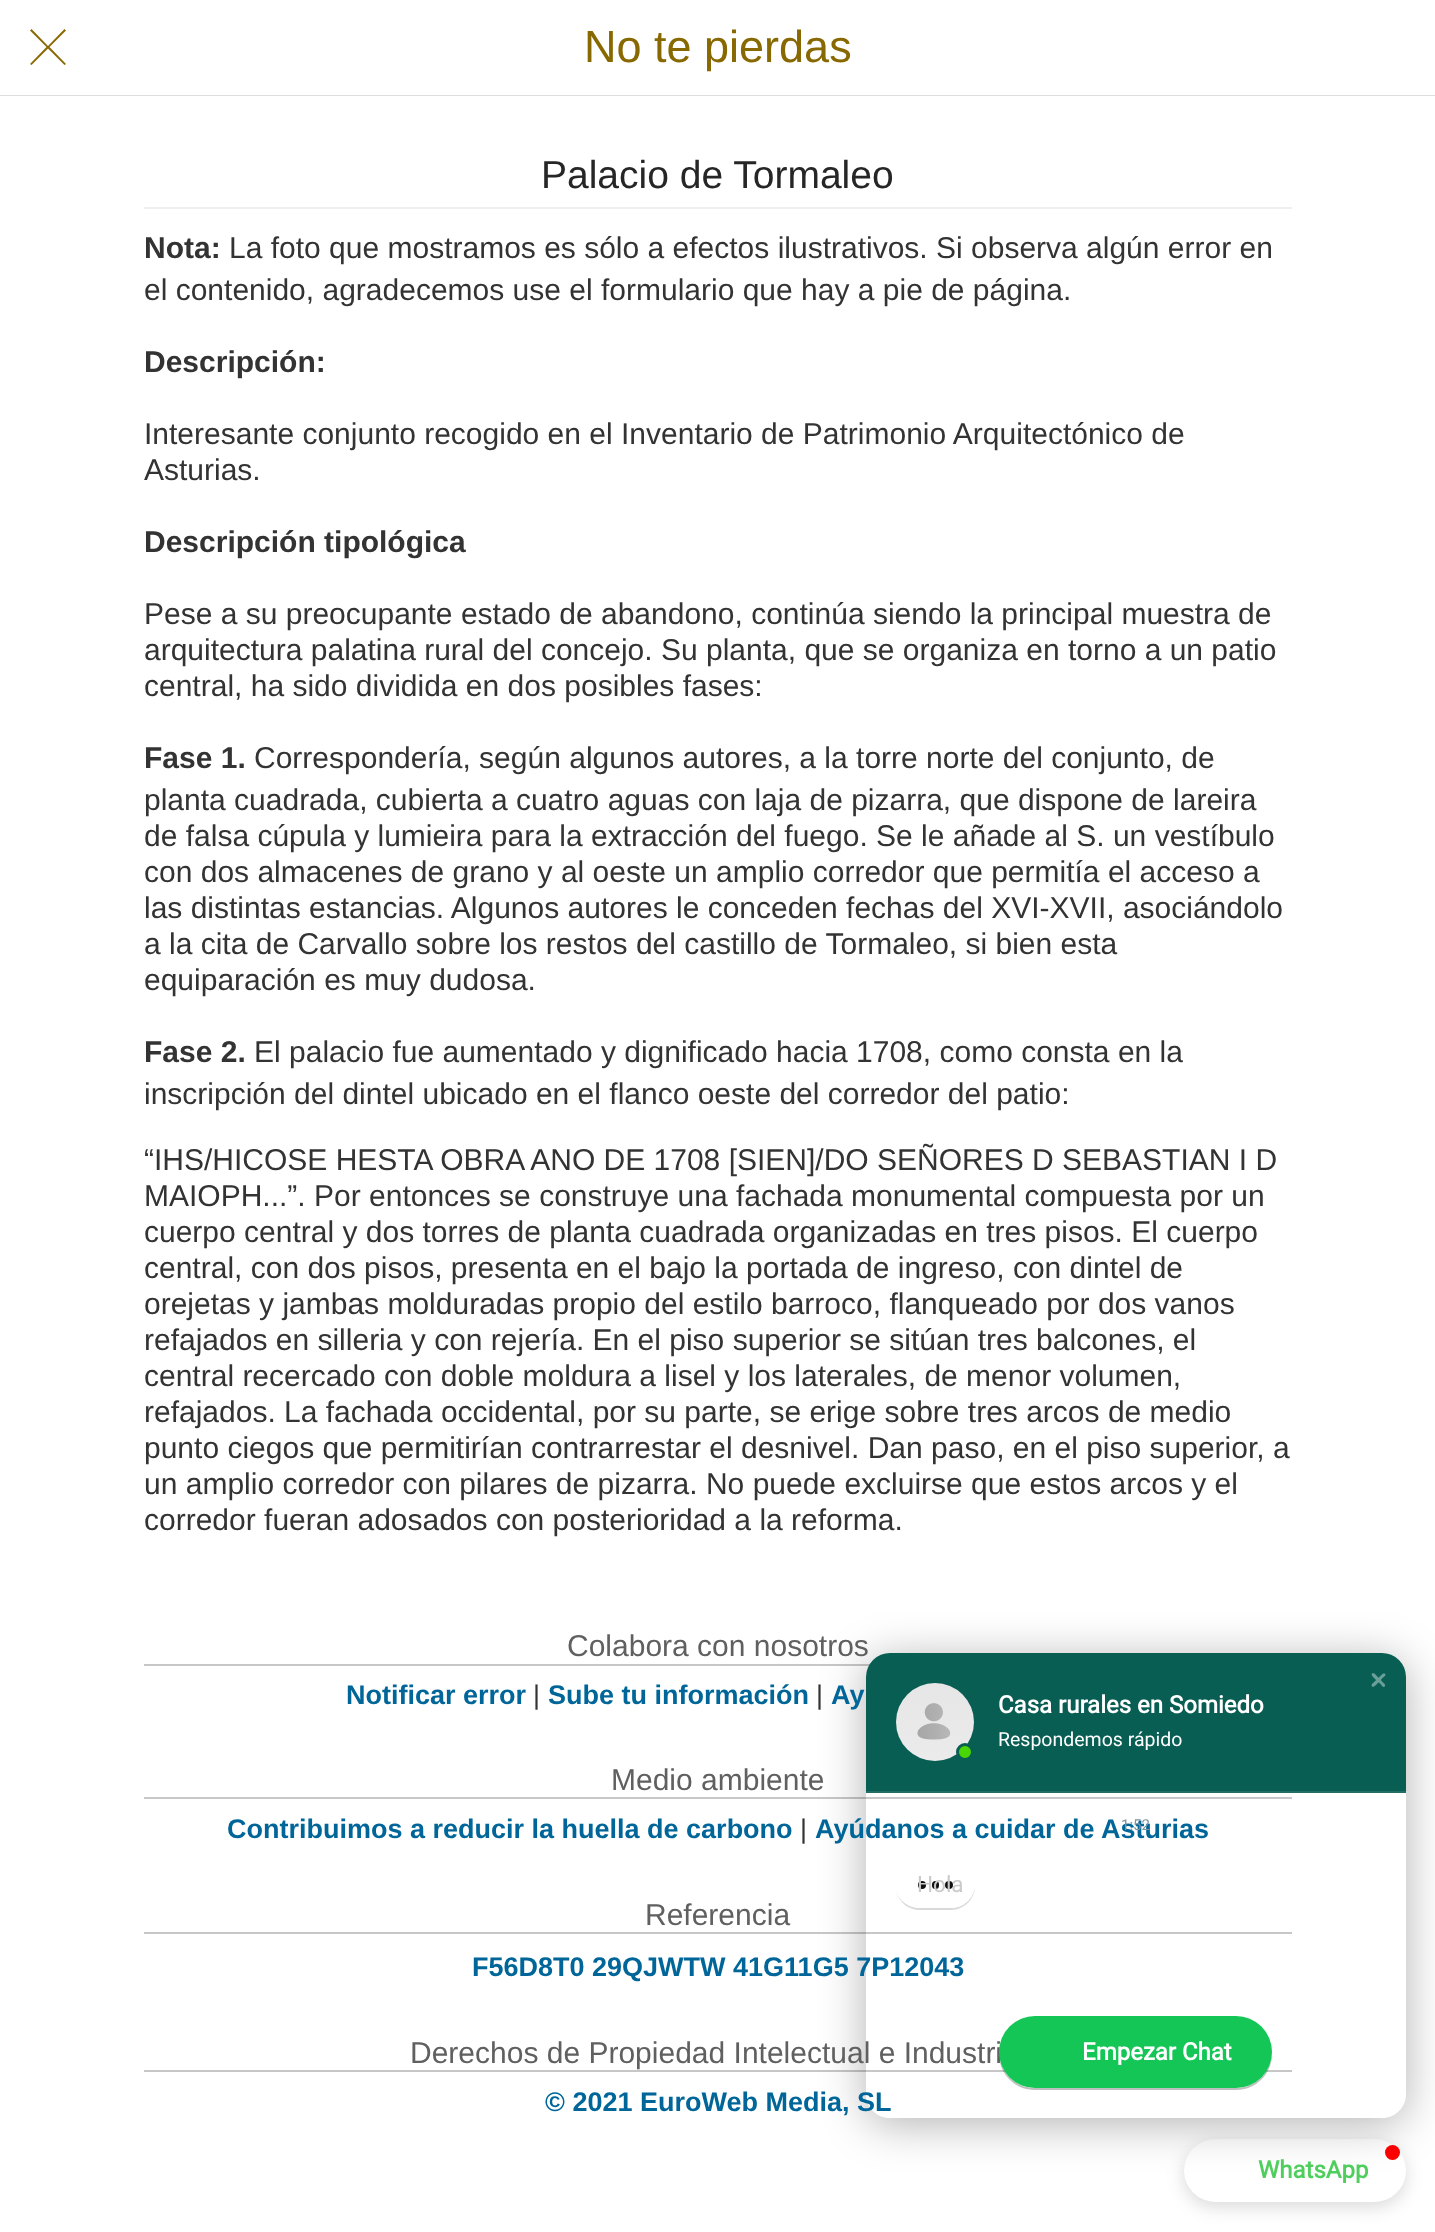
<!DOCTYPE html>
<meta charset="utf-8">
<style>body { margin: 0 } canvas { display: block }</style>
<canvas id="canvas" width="1435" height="2232"></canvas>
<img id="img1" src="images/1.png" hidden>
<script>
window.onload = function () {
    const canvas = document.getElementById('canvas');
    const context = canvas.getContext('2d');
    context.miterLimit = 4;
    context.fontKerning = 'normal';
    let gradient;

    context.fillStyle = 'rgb(255, 255, 255)';
    context.fillRect(0, 0, 1435, 2232);
    context.fillStyle = 'rgb(221, 221, 221)';
    context.fillRect(0, 95, 1435, 1);
    context.fillStyle = 'rgb(136, 104, 0)';
    context.beginPath();
    context.moveTo(66, 30.5);
    context.lineTo(64.5, 29);
    context.lineTo(48, 46);
    context.lineTo(31.5, 29);
    context.lineTo(30, 30.5);
    context.lineTo(46.5, 47);
    context.lineTo(30, 64);
    context.lineTo(31.5, 65);
    context.lineTo(48, 48.5);
    context.lineTo(64.5, 65);
    context.lineTo(66, 64);
    context.lineTo(49.5, 47);
    context.closePath();
    context.fill();
    context.fillStyle = 'rgb(239, 239, 239)';
    context.fillRect(144, 207, 1148, 2);
    context.fillStyle = 'rgb(199, 199, 199)';
    context.fillRect(144, 1664, 726, 2);
    context.fillRect(144, 1797, 1148, 2);
    context.fillRect(144, 1932, 1148, 2);
    context.fillRect(144, 2070, 1148, 2);
    context.fillStyle = 'rgba(0, 0, 0, 0.15)';
    context.filter = 'blur(9px)';
    context.beginPath();
    context.roundRect(1184, 2144, 222, 63, 31.5);
    context.fill();
    context.filter = 'none';
    context.fillStyle = 'rgb(255, 255, 255)';
    context.beginPath();
    context.roundRect(1184, 2139, 222, 63, 31.5);
    context.fill();
    context.fillStyle = 'rgb(255, 0, 0)';
    context.beginPath();
    context.arc(1392.5, 2152.5, 7.5, 0, 2 * Math.PI);
    context.fill();
    context.save();
    context.beginPath();
    context.moveTo(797, 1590);
    context.lineTo(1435, 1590);
    context.lineTo(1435, 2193);
    context.lineTo(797, 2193);
    context.closePath();
    context.moveTo(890, 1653);
    context.lineTo(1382, 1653);
    context.bezierCurveTo(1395.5, 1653, 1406, 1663.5, 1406, 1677);
    context.lineTo(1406, 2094);
    context.bezierCurveTo(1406, 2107.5, 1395.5, 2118, 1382, 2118);
    context.lineTo(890, 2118);
    context.bezierCurveTo(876.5, 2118, 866, 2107.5, 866, 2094);
    context.lineTo(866, 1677);
    context.bezierCurveTo(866, 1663.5, 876.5, 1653, 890, 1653);
    context.closePath();
    context.clip('evenodd');
    context.fillStyle = 'rgba(0, 0, 0, 0.3)';
    context.filter = 'blur(22.5px)';
    context.beginPath();
    context.roundRect(866, 1659, 540, 465, 24);
    context.fill();
    context.filter = 'none';
    context.restore();
    context.fillStyle = 'rgb(217, 217, 217)';
    context.beginPath();
    context.moveTo(896, 1891);
    context.bezierCurveTo(899, 1902, 908, 1910, 920, 1910);
    context.lineTo(951, 1910);
    context.bezierCurveTo(964, 1910, 975, 1899, 975, 1886);
    context.lineTo(975, 1885);
    context.bezierCurveTo(974, 1898, 964, 1908, 951, 1908);
    context.lineTo(920, 1908);
    context.bezierCurveTo(909, 1908, 899, 1901, 896, 1891);
    context.closePath();
    context.fill();
    context.fillStyle = 'rgb(255, 255, 255)';
    context.beginPath();
    context.roundRect(896, 1860, 79, 48, 24);
    context.fill();
    context.fillStyle = 'rgb(17, 17, 17)';
    context.beginPath();
    context.arc(922, 1885, 4, 0, 2 * Math.PI);
    context.fill();
    context.beginPath();
    context.roundRect(932, 1881, 7, 8, 3.5);
    context.fill();
    context.beginPath();
    context.arc(949, 1885, 4, 0, 2 * Math.PI);
    context.fill();
    context.font = '45px Liberation Sans';
    context.fillStyle = 'rgb(136, 104, 0)';
    context.fillText('No te pierdas', 584, 62);
    context.font = '39px Liberation Sans';
    context.fillStyle = 'rgb(38, 38, 38)';
    context.fillText('Palacio de Tormaleo', 541, 188);
    context.font = 'bold 30px Liberation Sans';
    context.fillStyle = 'rgb(51, 51, 51)';
    context.fillText('Nota:', 144, 258);
    context.font = '30px Liberation Sans';
    context.fillText('La foto que mostramos es sólo a efectos ilustrativos. Si observa algún error en', 229, 258);
    context.fillText('el contenido, agradecemos use el formulario que hay a pie de página.', 144, 300);
    context.font = 'bold 30px Liberation Sans';
    context.fillText('Descripción:', 144, 372);
    context.font = '30px Liberation Sans';
    context.fillText('Interesante conjunto recogido en el Inventario de Patrimonio Arquitectónico de', 144, 444);
    context.fillText('Asturias.', 144, 480);
    context.font = 'bold 30px Liberation Sans';
    context.fillText('Descripción tipológica', 144, 552);
    context.font = '30px Liberation Sans';
    context.fillText('Pese a su preocupante estado de abandono, continúa siendo la principal muestra de', 144, 624);
    context.fillText('arquitectura palatina rural del concejo. Su planta, que se organiza en torno a un patio', 144, 660);
    context.fillText('central, ha sido dividida en dos posibles fases:', 144, 696);
    context.font = 'bold 30px Liberation Sans';
    context.fillText('Fase 1.', 144, 768);
    context.font = '30px Liberation Sans';
    context.fillText('Correspondería, según algunos autores, a la torre norte del conjunto, de', 254, 768);
    context.fillText('planta cuadrada, cubierta a cuatro aguas con laja de pizarra, que dispone de lareira', 144, 810);
    context.fillText('de falsa cúpula y lumieira para la extracción del fuego. Se le añade al S. un vestíbulo', 144, 846);
    context.fillText('con dos almacenes de grano y al oeste un amplio corredor que permitía el acceso a', 144, 882);
    context.fillText('las distintas estancias. Algunos autores le conceden fechas del XVI-XVII, asociándolo', 144, 918);
    context.fillText('a la cita de Carvallo sobre los restos del castillo de Tormaleo, si bien esta', 144, 954);
    context.fillText('equiparación es muy dudosa.', 144, 990);
    context.font = 'bold 30px Liberation Sans';
    context.fillText('Fase 2.', 144, 1062);
    context.font = '30px Liberation Sans';
    context.fillText('El palacio fue aumentado y dignificado hacia 1708, como consta en la', 254, 1062);
    context.fillText('inscripción del dintel ubicado en el flanco oeste del corredor del patio:', 144, 1104);
    context.fillText('“IHS/HICOSE HESTA OBRA ANO DE 1708 [SIEN]/DO SEÑORES D SEBASTIAN I D', 144, 1170);
    context.fillText('MAIOPH...”. Por entonces se construye una fachada monumental compuesta por un', 144, 1206);
    context.fillText('cuerpo central y dos torres de planta cuadrada organizadas en tres pisos. El cuerpo', 144, 1242);
    context.fillText('central, con dos pisos, presenta en el bajo la portada de ingreso, con dintel de', 144, 1278);
    context.fillText('orejetas y jambas molduradas propio del estilo barroco, flanqueado por dos vanos', 144, 1314);
    context.fillText('refajados en silleria y con rejería. En el piso superior se sitúan tres balcones, el', 144, 1350);
    context.fillText('central recercado con doble moldura a lisel y los laterales, de menor volumen,', 144, 1386);
    context.fillText('refajados. La fachada occidental, por su parte, se erige sobre tres arcos de medio', 144, 1422);
    context.fillText('punto ciegos que permitirían contrarrestar el desnivel. Dan paso, en el piso superior, a', 144, 1458);
    context.fillText('un amplio corredor con pilares de pizarra. No puede excluirse que estos arcos y el', 144, 1494);
    context.fillText('corredor fueran adosados con posterioridad a la reforma.', 144, 1530);
    context.fillStyle = 'rgb(96, 96, 96)';
    context.fillText('Colabora con nosotros', 567, 1656);
    context.font = 'bold 27px Liberation Sans';
    context.fillStyle = 'rgb(0, 102, 153)';
    context.fillText('Notificar error', 346, 1704);
    context.font = '27px Liberation Sans';
    context.fillStyle = 'rgb(51, 51, 51)';
    context.fillText('|', 533, 1704);
    context.font = 'bold 27px Liberation Sans';
    context.fillStyle = 'rgb(0, 102, 153)';
    context.fillText('Sube tu información', 548, 1704);
    context.font = '27px Liberation Sans';
    context.fillStyle = 'rgb(51, 51, 51)';
    context.fillText('|', 816, 1704);
    context.font = 'bold 27px Liberation Sans';
    context.fillStyle = 'rgb(0, 102, 153)';
    context.fillText('Ay', 831, 1704);
    context.font = '30px Liberation Sans';
    context.fillStyle = 'rgb(96, 96, 96)';
    context.fillText('Medio ambiente', 611, 1790);
    context.font = 'bold 27px Liberation Sans';
    context.fillStyle = 'rgb(0, 102, 153)';
    context.fillText('Contribuimos a reducir la huella de carbono', 227, 1838);
    context.font = '27px Liberation Sans';
    context.fillStyle = 'rgb(51, 51, 51)';
    context.fillText('|', 800, 1838);
    context.font = 'bold 27px Liberation Sans';
    context.fillStyle = 'rgb(0, 102, 153)';
    context.fillText('Ayúdanos a cuidar de Asturias', 815, 1838);
    context.font = '30px Liberation Sans';
    context.fillStyle = 'rgb(96, 96, 96)';
    context.fillText('Referencia', 645, 1925);
    context.font = 'bold 27px Liberation Sans';
    context.fillStyle = 'rgb(0, 102, 153)';
    context.fillText('F56D8T0 29QJWTW 41G11G5 7P12043', 472, 1976);
    context.font = '30px Liberation Sans';
    context.fillStyle = 'rgb(96, 96, 96)';
    context.fillText('Derechos de Propiedad Intelectual e Industri', 410, 2063);
    context.font = 'bold 27px Liberation Sans';
    context.fillStyle = 'rgb(0, 102, 153)';
    context.fillText('© 2021 EuroWeb Media, SL', 545, 2111);
    context.fillStyle = 'rgb(9, 94, 84)';
    context.beginPath();
    context.roundRect(866, 1653, 540, 140, [24, 24, 0, 0]);
    context.fill();
    context.fillStyle = 'rgb(107, 158, 152)';
    context.beginPath();
    context.moveTo(1374.5, 1673.5);
    context.lineTo(1385, 1684.5);
    context.lineTo(1385, 1686);
    context.bezierCurveTo(1384, 1688.5, 1381.5, 1685.5, 1381, 1684.5);
    context.lineTo(1375.5, 1679.5);
    context.bezierCurveTo(1375, 1678.5, 1370.5, 1675.5, 1372, 1673.5);
    context.bezierCurveTo(1372.5, 1673, 1373.5, 1673, 1374.5, 1673.5);
    context.closePath();
    context.fill();
    context.beginPath();
    context.moveTo(1372, 1684);
    context.lineTo(1383, 1673.5);
    context.lineTo(1384.5, 1673.5);
    context.bezierCurveTo(1387, 1674.5, 1384, 1677, 1383, 1677.5);
    context.lineTo(1378, 1683);
    context.bezierCurveTo(1377, 1683.5, 1374, 1688, 1372, 1686.5);
    context.bezierCurveTo(1371.5, 1686, 1371.5, 1685, 1372, 1684);
    context.closePath();
    context.fill();
    context.fillStyle = 'rgb(34, 110, 101)';
    context.fillRect(866, 1791, 540, 2);
    gradient = context.createLinearGradient(935, 1683, 935, 1761);
    gradient.addColorStop(0, 'rgb(242, 242, 242)');
    gradient.addColorStop(1, 'rgb(247, 247, 247)');
    context.fillStyle = gradient;
    context.beginPath();
    context.arc(935, 1722, 39, 0, 2 * Math.PI);
    context.fill();
    context.drawImage(document.getElementById('img1'), 917, 1703, 34, 37);
    context.fillStyle = 'rgba(17, 17, 17, 0.05)';
    context.beginPath();
    context.moveTo(935, 1683);
    context.bezierCurveTo(957, 1683, 974, 1700, 974, 1722);
    context.bezierCurveTo(974, 1744, 957, 1761, 935, 1761);
    context.bezierCurveTo(913, 1761, 896, 1744, 896, 1722);
    context.bezierCurveTo(896, 1700, 913, 1683, 935, 1683);
    context.closePath();
    context.fill();
    context.fillStyle = 'rgb(74, 213, 4)';
    context.beginPath();
    context.arc(965, 1752, 7.5, 0, 2 * Math.PI);
    context.fill();
    context.strokeStyle = 'rgb(9, 94, 84)';
    context.lineWidth = 3;
    context.stroke();
    context.font = 'bold 24px Roboto';
    context.fillStyle = 'rgb(255, 255, 255)';
    context.fillText('Casa rurales en Somiedo', 998, 1713);
    context.font = '19.5px Roboto';
    context.fillText('Respondemos rápido', 998, 1746);
    context.font = '15px Roboto';
    context.fillStyle = 'rgb(125, 148, 160)';
    context.fillText('1:52', 1121, 1830);
    context.font = '22.5px Roboto';
    context.fillStyle = 'rgb(202, 202, 202)';
    context.fillText('Hola', 917, 1892);
    context.fillStyle = 'rgba(0, 0, 0, 0.25)';
    context.beginPath();
    context.moveTo(999, 2053);
    context.lineTo(999, 2054);
    context.bezierCurveTo(999, 2074, 1015, 2090, 1035, 2090);
    context.lineTo(1236, 2090);
    context.bezierCurveTo(1256, 2090, 1272, 2074, 1272, 2054);
    context.lineTo(1272, 2053);
    context.bezierCurveTo(1271, 2072, 1256, 2088, 1236, 2088);
    context.lineTo(1035, 2088);
    context.bezierCurveTo(1015, 2088, 1000, 2072, 999, 2053);
    context.closePath();
    context.fill();
    context.fillStyle = 'rgb(20, 198, 86)';
    context.beginPath();
    context.roundRect(999, 2016, 273, 72, 36);
    context.fill();
    context.font = 'bold 24px Roboto';
    context.fillStyle = 'rgb(255, 255, 255)';
    context.fillText('Empezar Chat', 1082, 2060);
    context.fillStyle = 'rgb(79, 206, 93)';
    context.fillText('WhatsApp', 1258, 2178);
};
</script>
